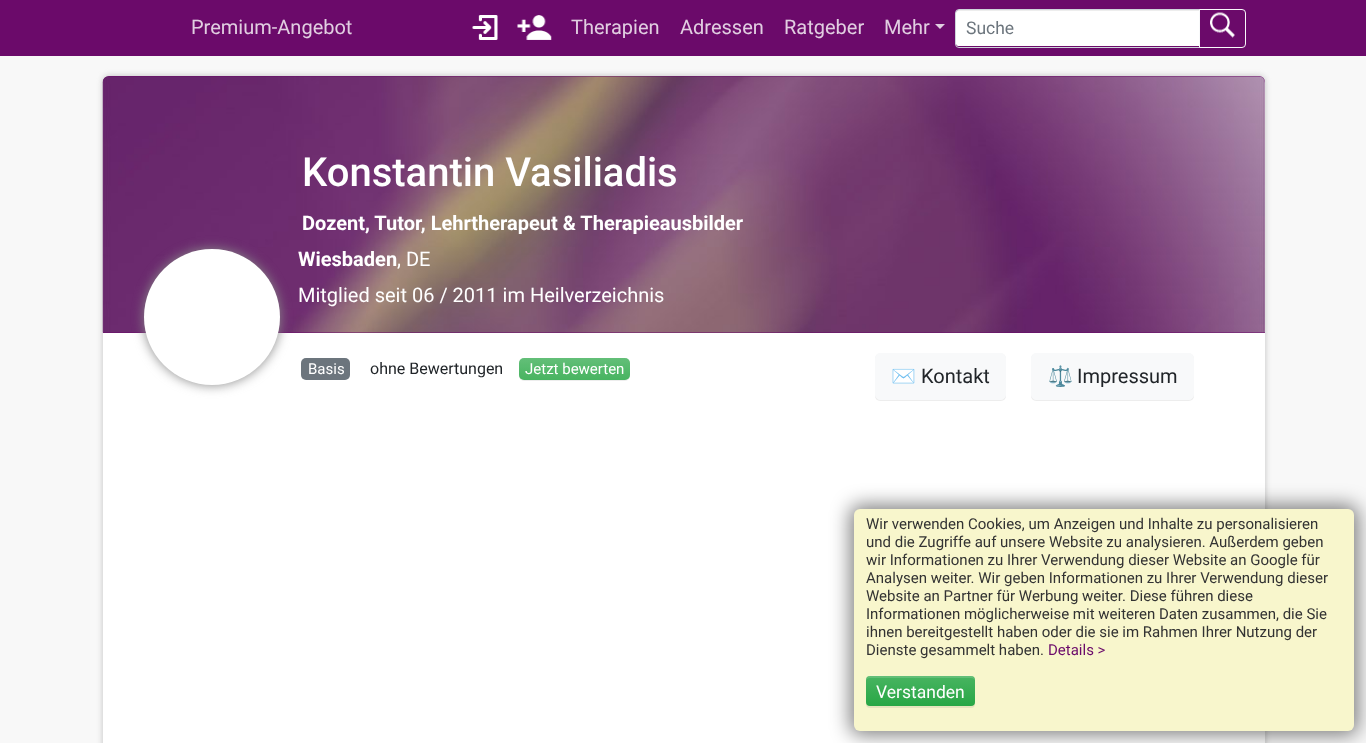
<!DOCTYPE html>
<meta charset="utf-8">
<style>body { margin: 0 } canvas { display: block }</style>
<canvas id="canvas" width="1366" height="743"></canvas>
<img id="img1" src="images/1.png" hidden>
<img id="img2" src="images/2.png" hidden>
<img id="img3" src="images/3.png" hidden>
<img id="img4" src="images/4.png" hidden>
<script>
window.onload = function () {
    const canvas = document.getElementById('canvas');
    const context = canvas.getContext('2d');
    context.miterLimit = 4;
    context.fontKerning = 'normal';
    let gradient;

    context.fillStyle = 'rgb(248, 248, 248)';
    context.fillRect(0, 0, 1366, 743);
    context.fillStyle = 'rgb(107, 10, 106)';
    context.fillRect(0, 0, 1366, 56);
    context.drawImage(document.getElementById('img1'), 472, 15, 26, 25);
    context.drawImage(document.getElementById('img2'), 517, 15, 35, 25);
    context.fillStyle = 'rgb(225, 206, 225)';
    context.beginPath();
    context.moveTo(935, 24);
    context.lineTo(945, 24);
    context.lineTo(940, 29);
    context.closePath();
    context.fill();
    context.fillStyle = 'rgb(255, 255, 255)';
    context.beginPath();
    context.roundRect(956, 10, 243, 36, [2.5, 0, 0, 2.5]);
    context.fill();
    context.fillStyle = 'rgba(0, 0, 0, 0.07)';
    context.beginPath();
    context.moveTo(959, 11);
    context.lineTo(1199, 11);
    context.lineTo(1199, 10);
    context.lineTo(958, 10);
    context.bezierCurveTo(956, 11, 956, 13, 956, 14);
    context.bezierCurveTo(956, 12, 957, 11, 959, 11);
    context.closePath();
    context.fill();
    context.beginPath();
    context.roundRect(955.5, 9.5, 244, 38, [3.5, 0, 0, 3.5]);
    context.strokeStyle = 'rgb(206, 212, 218)';
    context.stroke();
    context.beginPath();
    context.roundRect(1199.5, 9.5, 46, 38, [0, 3.5, 3.5, 0]);
    context.strokeStyle = 'rgb(248, 249, 250)';
    context.stroke();
    context.drawImage(document.getElementById('img3'), 1210, 12, 25, 26);
    context.fillStyle = 'rgb(192, 192, 192)';
    context.filter = 'blur(3px)';
    context.beginPath();
    context.roundRect(103, 76, 1162, 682, 6);
    context.fill();
    context.filter = 'none';
    context.fillStyle = 'rgb(255, 255, 255)';
    context.beginPath();
    context.roundRect(103, 76, 1162, 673, 6);
    context.fill();
    context.fillStyle = 'rgb(107, 10, 106)';
    context.beginPath();
    context.roundRect(103, 76, 1162, 257, [6, 6, 0, 0]);
    context.fill();
    context.drawImage(document.getElementById('img4'), 102, 76, 1163, 257);
    context.fillStyle = 'rgb(136, 136, 136)';
    context.filter = 'blur(6px)';
    context.beginPath();
    context.roundRect(144, 249, 136, 136, 68);
    context.fill();
    context.filter = 'none';
    context.fillStyle = 'rgb(255, 255, 255)';
    context.beginPath();
    context.arc(212, 317, 68, 0, 2 * Math.PI);
    context.fill();
    context.fillStyle = 'rgb(108, 117, 125)';
    context.beginPath();
    context.roundRect(301, 358, 49, 22, 5);
    context.fill();
    context.fillStyle = 'rgba(0, 0, 0, 0.07)';
    context.filter = 'blur(0.5px)';
    context.beginPath();
    context.roundRect(519, 359, 111, 22, 5);
    context.fill();
    context.filter = 'none';
    gradient = context.createLinearGradient(574, 358, 574, 380);
    gradient.addColorStop(0, 'rgb(72, 180, 97)');
    gradient.addColorStop(1, 'rgb(40, 167, 69)');
    context.fillStyle = gradient;
    context.beginPath();
    context.roundRect(519, 358, 111, 22, 5);
    context.fill();
    context.fillStyle = 'rgba(255, 255, 255, 0.15)';
    context.beginPath();
    context.moveTo(524, 358);
    context.bezierCurveTo(521, 358, 519, 360, 519, 363);
    context.lineTo(519, 375);
    context.bezierCurveTo(519, 378, 521, 380, 524, 380);
    context.lineTo(625, 380);
    context.bezierCurveTo(628, 380, 630, 378, 630, 375);
    context.lineTo(630, 363);
    context.bezierCurveTo(630, 360, 628, 358, 625, 358);
    context.closePath();
    context.fill();
    context.fillStyle = 'rgba(0, 0, 0, 0.07)';
    context.filter = 'blur(0.5px)';
    context.beginPath();
    context.roundRect(875, 354, 131, 47, 5);
    context.fill();
    context.filter = 'none';
    context.fillStyle = 'rgb(248, 249, 250)';
    context.beginPath();
    context.roundRect(875.5, 353.5, 130, 46, 4.5);
    context.fill();
    context.stroke();
    context.fillStyle = 'rgba(0, 0, 0, 0.07)';
    context.filter = 'blur(0.5px)';
    context.beginPath();
    context.roundRect(1031, 354, 163, 47, 5);
    context.fill();
    context.filter = 'none';
    context.fillStyle = 'rgb(248, 249, 250)';
    context.beginPath();
    context.roundRect(1031.5, 353.5, 162, 46, 4.5);
    context.fill();
    context.stroke();
    context.fillStyle = 'rgba(0, 0, 0, 0.5)';
    context.filter = 'blur(9.5px)';
    context.beginPath();
    context.roundRect(850, 505, 508, 230, 10);
    context.fill();
    context.filter = 'none';
    context.fillStyle = 'rgb(248, 246, 204)';
    context.beginPath();
    context.roundRect(854, 509, 500, 222, 6);
    context.fill();
    context.fillStyle = 'rgba(0, 0, 0, 0.07)';
    context.filter = 'blur(0.5px)';
    context.beginPath();
    context.roundRect(866, 678, 109, 30, 4);
    context.fill();
    context.filter = 'none';
    gradient = context.createLinearGradient(921, 676, 921, 706);
    gradient.addColorStop(0, 'rgb(72, 180, 97)');
    gradient.addColorStop(1, 'rgb(40, 167, 69)');
    context.fillStyle = gradient;
    context.beginPath();
    context.roundRect(866, 676, 109, 30, 4);
    context.fill();
    context.fillStyle = 'rgba(255, 255, 255, 0.15)';
    context.beginPath();
    context.moveTo(870, 678);
    context.lineTo(971, 678);
    context.bezierCurveTo(973, 678, 975, 679, 975, 681);
    context.bezierCurveTo(975, 672, 958, 676, 954, 676);
    context.lineTo(887, 676);
    context.bezierCurveTo(883, 676, 866, 672, 866, 681);
    context.bezierCurveTo(866, 679, 868, 678, 870, 678);
    context.closePath();
    context.fill();
    context.font = '20px Roboto';
    context.fillStyle = 'rgb(225, 206, 225)';
    context.fillText('Premium-Angebot', 191, 34);
    context.fillText('Therapien', 571, 34);
    context.fillText('Adressen', 680, 34);
    context.fillText('Ratgeber', 784, 34);
    context.fillText('Mehr', 884, 34);
    context.font = '17.5px Roboto';
    context.fillStyle = 'rgb(108, 117, 125)';
    context.fillText('Suche', 966, 34);
    context.font = '500 40px Roboto';
    context.fillStyle = 'rgb(255, 255, 255)';
    context.fillText('Konstantin Vasiliadis', 302, 186);
    context.font = 'bold 20px Roboto';
    context.fillText('Dozent, Tutor, Lehrtherapeut & Therapieausbilder', 302, 230);
    context.fillText('Wiesbaden', 298, 266);
    context.font = '20px Roboto';
    context.fillText(', DE', 397, 266);
    context.fillText('Mitglied seit 06 / 2011 im Heilverzeichnis', 298, 302);
    context.font = '15px Roboto';
    context.fillText('Basis', 308, 374);
    context.font = '16px Roboto';
    context.fillStyle = 'rgb(33, 37, 41)';
    context.fillText('ohne Bewertungen', 370, 374);
    context.font = '15px Roboto';
    context.fillStyle = 'rgb(255, 255, 255)';
    context.fillText('Jetzt bewerten', 525, 374);
    context.font = '20px Noto Color Emoji';
    context.fillStyle = 'rgb(33, 37, 41)';
    context.fillText('✉️', 891, 383);
    context.font = '20px Roboto';
    context.fillText('Kontakt', 921, 383);
    context.font = '20px Noto Color Emoji';
    context.fillText('⚖️', 1048, 383);
    context.font = '20px Roboto';
    context.fillText('Impressum', 1077, 383);
    context.font = '15px Roboto';
    context.fillStyle = 'rgb(51, 51, 51)';
    context.fillText('Wir verwenden Cookies, um Anzeigen und Inhalte zu personalisieren', 866, 529);
    context.fillText('und die Zugriffe auf unsere Website zu analysieren. Außerdem geben', 866, 547);
    context.fillText('wir Informationen zu Ihrer Verwendung dieser Website an Google für', 866, 565);
    context.fillText('Analysen weiter. Wir geben Informationen zu Ihrer Verwendung dieser', 866, 583);
    context.fillText('Website an Partner für Werbung weiter. Diese führen diese', 866, 601);
    context.fillText('Informationen möglicherweise mit weiteren Daten zusammen, die Sie', 866, 619);
    context.fillText('ihnen bereitgestellt haben oder die sie im Rahmen Ihrer Nutzung der', 866, 637);
    context.fillText('Dienste gesammelt haben.', 866, 655);
    context.fillStyle = 'rgb(107, 10, 106)';
    context.fillText('Details >', 1048, 655);
    context.font = '17.5px Roboto';
    context.fillStyle = 'rgb(255, 255, 255)';
    context.fillText('Verstanden', 876, 698);
};
</script>
